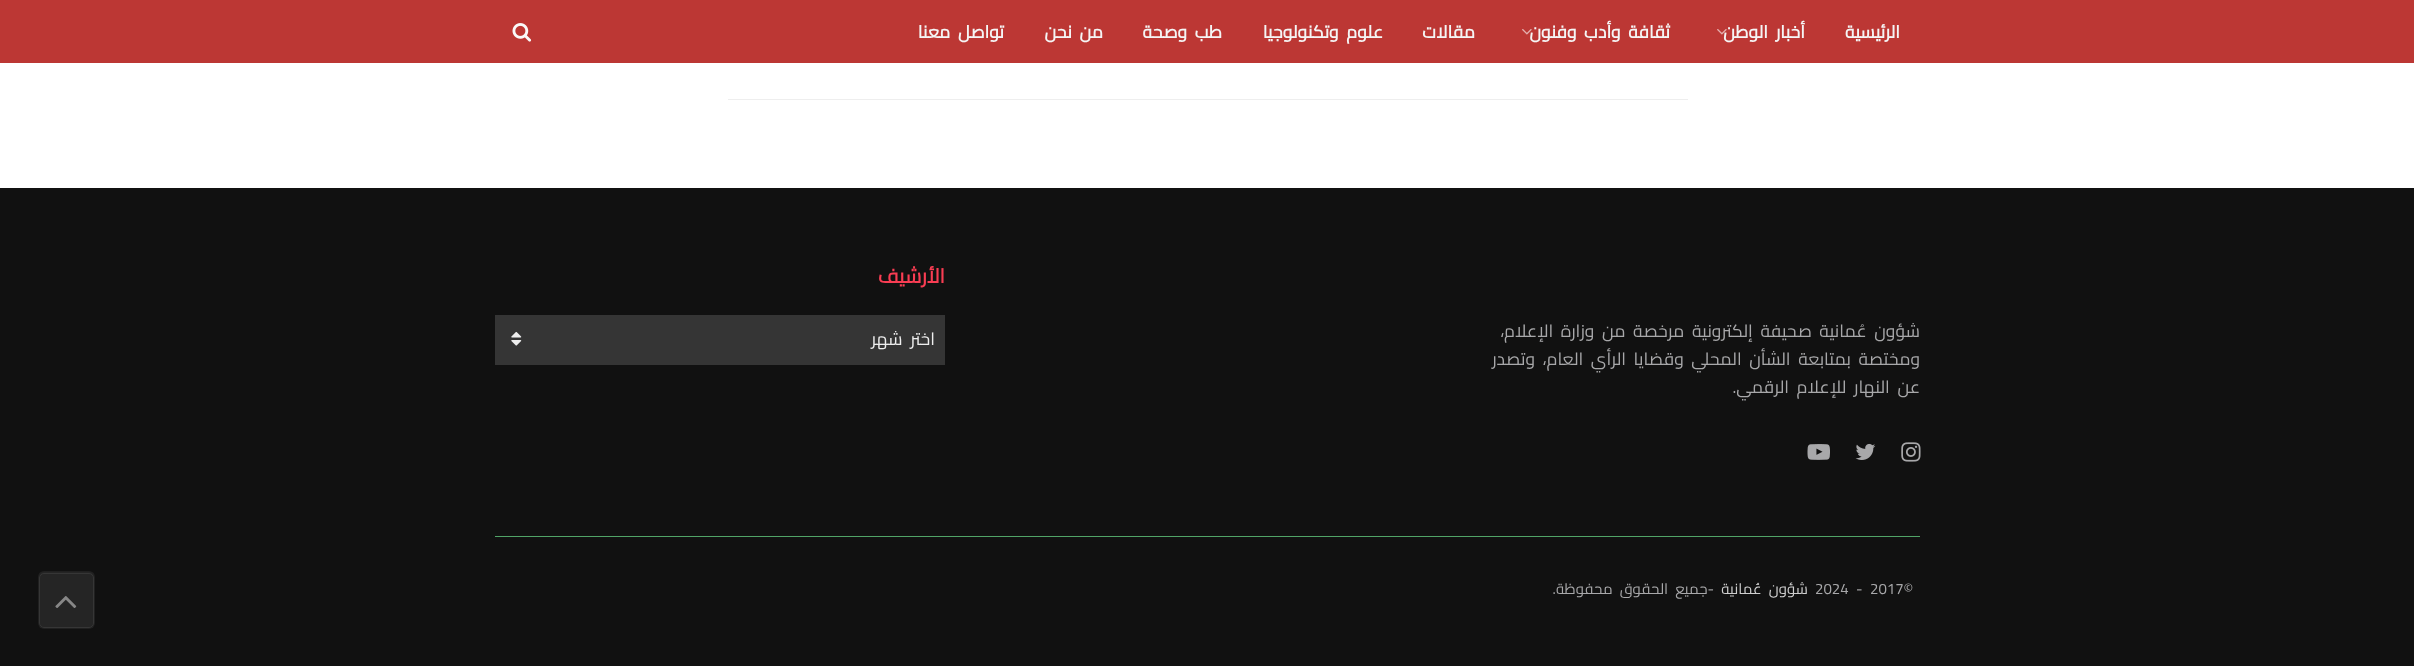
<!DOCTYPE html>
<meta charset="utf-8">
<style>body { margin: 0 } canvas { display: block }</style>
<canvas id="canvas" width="2414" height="666"></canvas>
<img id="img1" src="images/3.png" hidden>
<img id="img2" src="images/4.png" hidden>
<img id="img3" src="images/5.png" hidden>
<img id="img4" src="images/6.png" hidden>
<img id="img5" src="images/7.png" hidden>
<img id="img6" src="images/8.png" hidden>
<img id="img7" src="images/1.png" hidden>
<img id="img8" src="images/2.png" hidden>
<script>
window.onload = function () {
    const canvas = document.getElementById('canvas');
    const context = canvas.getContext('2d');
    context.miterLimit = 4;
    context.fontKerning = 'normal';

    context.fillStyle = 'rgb(255, 255, 255)';
    context.fillRect(0, 0, 2414, 666);
    context.fillStyle = 'rgb(188, 55, 52)';
    context.fillRect(0, 0, 2414, 63);
    context.drawImage(document.getElementById('img1'), 512, 23, 20, 19);
    context.fillStyle = 'rgb(238, 238, 238)';
    context.fillRect(728, 99, 960, 1);
    context.fillStyle = 'rgb(17, 17, 17)';
    context.fillRect(0, 188, 2414, 478);
    context.fillStyle = 'rgb(53, 53, 53)';
    context.fillRect(495, 315, 450, 50);
    context.drawImage(document.getElementById('img2'), 511, 331, 11, 15);
    context.drawImage(document.getElementById('img3'), 1901, 442, 20, 20);
    context.drawImage(document.getElementById('img4'), 1855, 443, 21, 17);
    context.drawImage(document.getElementById('img5'), 1807, 444, 23, 16);
    context.fillStyle = 'rgb(81, 164, 103)';
    context.fillRect(495, 536, 1425, 1);
    context.fillStyle = 'rgb(37, 37, 37)';
    context.beginPath();
    context.roundRect(38, 571, 57, 58, 6);
    context.fill();
    context.beginPath();
    context.roundRect(39.5, 573.5, 54, 54, 4.5);
    context.strokeStyle = 'rgb(54, 54, 54)';
    context.stroke();
    context.beginPath();
    context.roundRect(38.5, 571.5, 56, 57, 5.5);
    context.strokeStyle = 'rgba(3, 3, 3, 0.11)';
    context.stroke();
    context.drawImage(document.getElementById('img6'), 55, 596, 22, 12);
    context.direction = 'rtl';
    context.font = 'bold 17.5px Cairo';
    context.fillStyle = 'rgb(245, 245, 245)';
    context.fillText('الرئيسية', 1900, 38);
    context.wordSpacing = '3.75px';
    context.fillText('أخبار الوطن', 1805, 38);
    context.drawImage(document.getElementById('img7'), 1717, 29, 10, 6);
    context.fillText('ثقافة وأدب وفنون', 1670, 38);
    context.drawImage(document.getElementById('img8'), 1522, 29, 10, 6);
    context.wordSpacing = '0px';
    context.fillText('مقالات', 1475, 38);
    context.wordSpacing = '3.75px';
    context.fillText('علوم وتكنولوجيا', 1383, 38);
    context.fillText('طب وصحة', 1222, 38);
    context.fillText('من نحن', 1103, 38);
    context.fillText('تواصل معنا', 1004, 38);
    context.wordSpacing = '0px';
    context.font = 'bold 20px Cairo';
    context.fillStyle = 'rgb(249, 61, 83)';
    context.fillText('الأرشيف', 945, 283);
    context.wordSpacing = '3.75px';
    context.font = '17.5px Cairo';
    context.fillStyle = 'rgb(238, 238, 238)';
    context.fillText('اختر شهر', 935, 345);
    context.fillStyle = 'rgb(168, 168, 170)';
    context.fillText('شؤون عُمانية صحيفة إلكترونية مرخصة من وزارة الإعلام،', 1920, 337);
    context.fillText('ومختصة بمتابعة الشأن المحلي وقضايا الرأي العام، وتصدر', 1920, 365);
    context.fillText('عن النهار للإعلام الرقمي.', 1920, 393);
    context.wordSpacing = '0px';
    context.direction = 'ltr';
    context.font = '15px Cairo';
    context.fillText('2017©', 1870, 594);
    context.fillText('-', 1856, 594);
    context.fillText('2024', 1815, 594);
    context.wordSpacing = '3.75px';
    context.direction = 'rtl';
    context.fillStyle = 'rgb(207, 207, 207)';
    context.fillText('شؤون عُمانية', 1808, 594);
    context.fillStyle = 'rgb(168, 168, 170)';
    context.fillText('-جميع الحقوق محفوظة.', 1714, 594);
};
</script>
